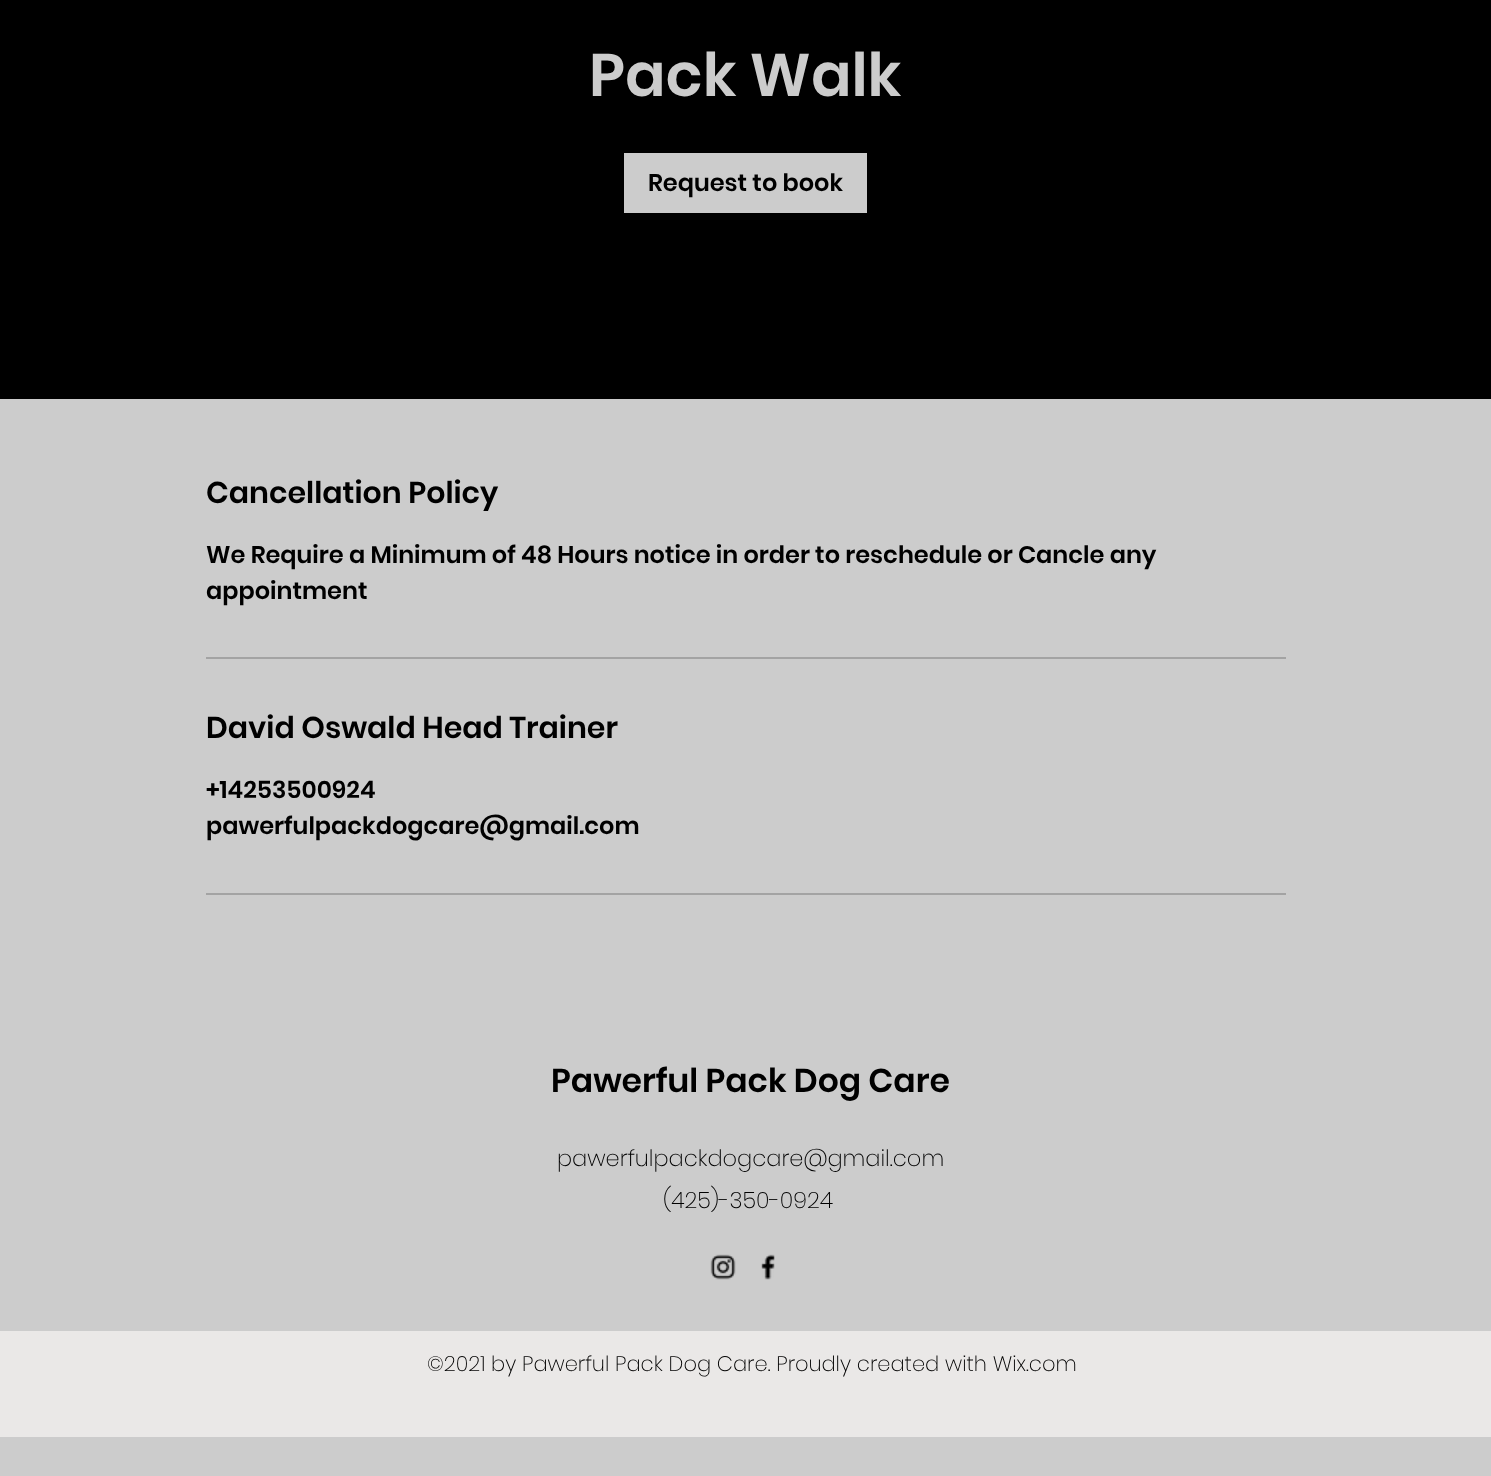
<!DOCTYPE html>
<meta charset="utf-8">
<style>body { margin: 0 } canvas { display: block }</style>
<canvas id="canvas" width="1491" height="1476"></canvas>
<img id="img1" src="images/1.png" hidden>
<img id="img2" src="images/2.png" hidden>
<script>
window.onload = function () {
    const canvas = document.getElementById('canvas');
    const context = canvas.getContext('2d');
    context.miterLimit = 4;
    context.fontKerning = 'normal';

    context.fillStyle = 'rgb(204, 204, 204)';
    context.fillRect(0, 0, 1491, 1476);
    context.fillStyle = 'rgb(0, 0, 0)';
    context.fillRect(0, 0, 1491, 399);
    context.fillStyle = 'rgb(204, 204, 204)';
    context.fillRect(624, 153, 243, 60);
    context.fillStyle = 'rgb(163, 163, 163)';
    context.fillRect(206, 657, 1080, 2);
    context.fillRect(206, 893, 1080, 2);
    context.drawImage(document.getElementById('img1'), 710, 1254, 26, 26);
    context.drawImage(document.getElementById('img2'), 761, 1254, 14, 26);
    context.fillStyle = 'rgb(234, 232, 231)';
    context.fillRect(0, 1331, 1491, 106);
    context.font = '600 60px Poppins';
    context.fillStyle = 'rgb(204, 204, 204)';
    context.fillText('Pack Walk', 589, 96);
    context.font = '600 24px Poppins';
    context.fillStyle = 'rgb(0, 0, 0)';
    context.fillText('Request to book', 648, 191);
    context.font = '600 30px Poppins';
    context.fillText('Cancellation Policy', 206, 503);
    context.font = '600 24px Poppins';
    context.fillText('We Require a Minimum of 48 Hours notice in order to reschedule or Cancle any', 206, 563);
    context.fillText('appointment', 206, 599);
    context.font = '600 30px Poppins';
    context.fillText('David Oswald Head Trainer', 206, 738);
    context.font = '600 24px Poppins';
    context.fillText('+14253500924', 206, 798);
    context.fillText('pawerfulpackdogcare@gmail.com', 206, 834);
    context.font = '600 33px Poppins';
    context.fillText('Pawerful Pack Dog Care', 551, 1092);
    context.font = '200 22.5px Poppins';
    context.fillText('pawerfulpackdogcare@gmail.com', 557, 1166);
    context.fillText('(425)-350-0924', 663, 1208);
    context.font = '200 21px Poppins';
    context.fillText('©2021 by Pawerful Pack Dog Care. Proudly created with Wix.com', 427, 1371);
};
</script>
